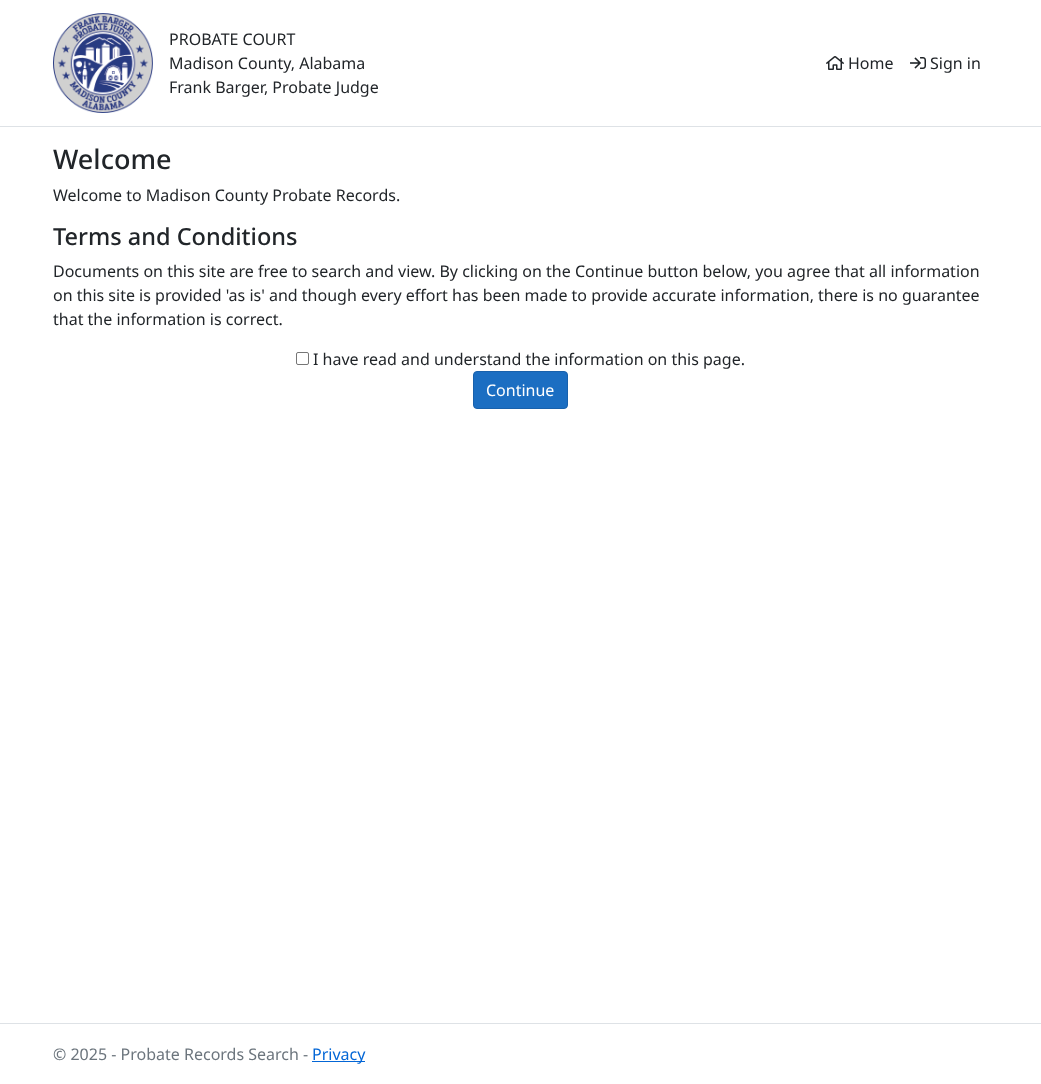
<!DOCTYPE html>
<meta charset="utf-8">
<style>body { margin: 0 } canvas { display: block }</style>
<canvas id="canvas" width="1041" height="1084"></canvas>
<img id="img1" src="images/1.png" hidden>
<img id="img2" src="images/2.png" hidden>
<img id="img3" src="images/3.png" hidden>
<script>
window.onload = function () {
    const canvas = document.getElementById('canvas');
    const context = canvas.getContext('2d');
    context.miterLimit = 4;
    context.fontKerning = 'normal';

    context.fillStyle = 'rgb(255, 255, 255)';
    context.fillRect(0, 0, 1041, 1084);
    context.fillStyle = 'rgb(222, 226, 230)';
    context.fillRect(0, 126, 1041, 1);
    context.drawImage(document.getElementById('img1'), 53, 13, 100, 100);
    context.drawImage(document.getElementById('img2'), 826, 56, 18, 14);
    context.drawImage(document.getElementById('img3'), 910, 57, 16, 12);
    context.beginPath();
    context.roundRect(296.5, 352.5, 12, 12, 1.5);
    context.strokeStyle = 'rgb(118, 118, 118)';
    context.stroke();
    context.fillStyle = 'rgb(27, 110, 194)';
    context.beginPath();
    context.roundRect(473.5, 371.5, 94, 37, 3.5);
    context.fill();
    context.strokeStyle = 'rgb(24, 97, 172)';
    context.stroke();
    context.fillStyle = 'rgb(222, 226, 230)';
    context.fillRect(0, 1023, 1041, 1);
    context.fillStyle = 'rgb(3, 102, 214)';
    context.fillRect(312, 1061, 53, 1);
    context.font = '16px Noto Sans';
    context.fillStyle = 'rgb(33, 37, 41)';
    context.fillText('PROBATE COURT', 169, 45);
    context.fillText('Madison County, Alabama', 169, 69);
    context.fillText('Frank Barger, Probate Judge', 169, 93);
    context.fillText('Home', 848, 69);
    context.fillText('Sign in', 930, 69);
    context.font = '500 27px Noto Sans';
    context.fillText('Welcome', 53, 169);
    context.font = '16px Noto Sans';
    context.fillText('Welcome to Madison County Probate Records.', 53, 201);
    context.font = '500 23.5px Noto Sans';
    context.fillText('Terms and Conditions', 53, 245);
    context.font = '16px Noto Sans';
    context.fillText('Documents on this site are free to search and view. By clicking on the Continue button below, you agree that all information', 53, 277);
    context.fillText('on this site is provided \'as is\' and though every effort has been made to provide accurate information, there is no guarantee', 53, 301);
    context.fillText('that the information is correct.', 53, 325);
    context.fillText('I have read and understand the information on this page.', 313, 365);
    context.fillStyle = 'rgb(255, 255, 255)';
    context.fillText('Continue', 486, 396);
    context.fillStyle = 'rgb(108, 117, 125)';
    context.fillText('© 2025 - Probate Records Search -', 53, 1060);
    context.fillStyle = 'rgb(3, 102, 214)';
    context.fillText('Privacy', 312, 1060);
};
</script>
